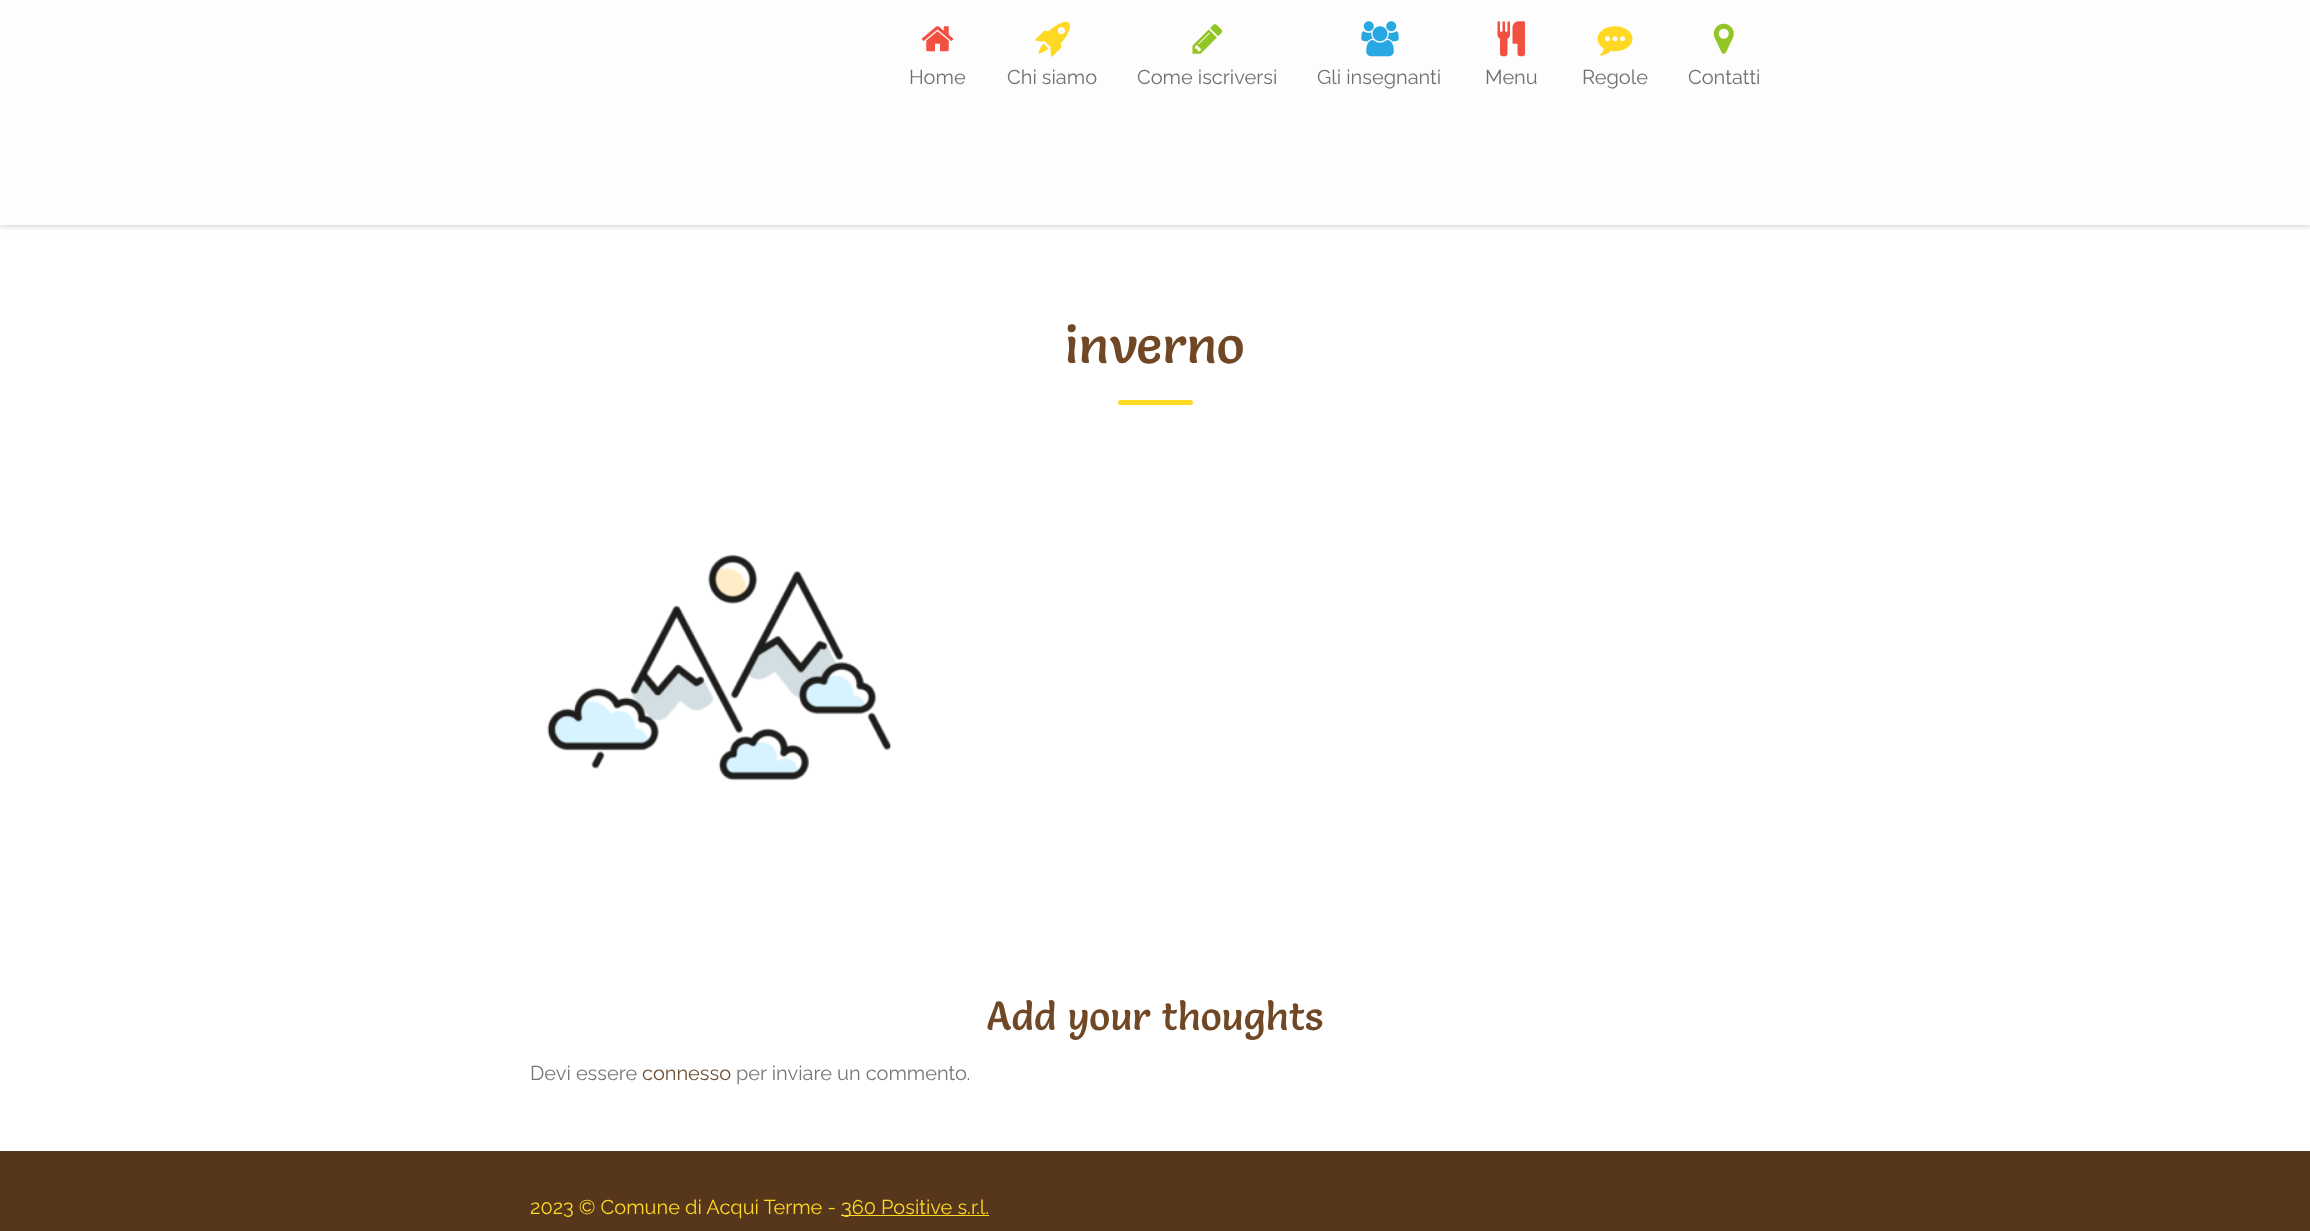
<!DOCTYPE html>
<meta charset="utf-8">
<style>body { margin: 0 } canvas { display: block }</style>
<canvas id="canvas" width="2310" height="1231"></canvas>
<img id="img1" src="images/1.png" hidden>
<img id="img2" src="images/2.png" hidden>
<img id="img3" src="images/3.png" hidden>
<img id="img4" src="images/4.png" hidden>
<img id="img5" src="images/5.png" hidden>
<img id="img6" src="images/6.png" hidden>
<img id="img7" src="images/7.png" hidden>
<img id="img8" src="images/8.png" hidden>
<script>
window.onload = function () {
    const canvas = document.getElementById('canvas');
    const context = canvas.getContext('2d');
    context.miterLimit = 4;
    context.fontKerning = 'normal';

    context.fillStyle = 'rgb(255, 255, 255)';
    context.fillRect(0, 0, 2310, 1231);
    context.fillStyle = 'rgba(0, 0, 0, 0.2)';
    context.filter = 'blur(3px)';
    context.beginPath();
    context.rect(0, 1, 2310, 225);
    context.fill();
    context.filter = 'none';
    context.fillStyle = 'rgb(253, 253, 253)';
    context.fillRect(0, 0, 2310, 225);
    context.drawImage(document.getElementById('img1'), 921, 26, 33, 26);
    context.drawImage(document.getElementById('img2'), 1035, 21, 35, 36);
    context.drawImage(document.getElementById('img3'), 1192, 24, 31, 30);
    context.drawImage(document.getElementById('img4'), 1361, 21, 38, 36);
    context.drawImage(document.getElementById('img5'), 1497, 21, 28, 36);
    context.drawImage(document.getElementById('img6'), 1597, 26, 36, 30);
    context.drawImage(document.getElementById('img7'), 1713, 23, 21, 31);
    context.fillStyle = 'rgb(255, 216, 35)';
    context.beginPath();
    context.roundRect(1118, 400, 75, 5, 2.5);
    context.fill();
    context.drawImage(document.getElementById('img8'), 547, 554, 345, 227);
    context.fillStyle = 'rgb(86, 55, 27)';
    context.fillRect(0, 1151, 2310, 80);
    context.fillStyle = 'rgb(255, 216, 35)';
    context.fillRect(841, 1215, 148, 1);
    context.font = '100 20px Raleway';
    context.fillStyle = 'rgb(112, 112, 112)';
    context.fillText('Home', 909, 84);
    context.fillText('Chi siamo', 1007, 84);
    context.fillText('Come iscriversi', 1137, 84);
    context.fillText('Gli insegnanti', 1317, 84);
    context.fillText('Menu', 1485, 84);
    context.fillText('Regole', 1582, 84);
    context.fillText('Contatti', 1688, 84);
    context.font = '52.5px Salsa';
    context.fillStyle = 'rgb(112, 72, 37)';
    context.fillText('inverno', 1065, 363);
    context.font = '40px Salsa';
    context.fillText('Add your thoughts', 987, 1030);
    context.font = '100 20px Raleway';
    context.fillStyle = 'rgb(119, 119, 119)';
    context.fillText('Devi essere', 530, 1080);
    context.fillStyle = 'rgb(112, 79, 50)';
    context.fillText('connesso', 642, 1080);
    context.fillStyle = 'rgb(119, 119, 119)';
    context.fillText('per inviare un commento.', 736, 1080);
    context.fillStyle = 'rgb(255, 216, 35)';
    context.fillText('2023 © Comune di Acqui Terme -', 530, 1214);
    context.fillText('360 Positive s.r.l.', 841, 1214);
};
</script>
